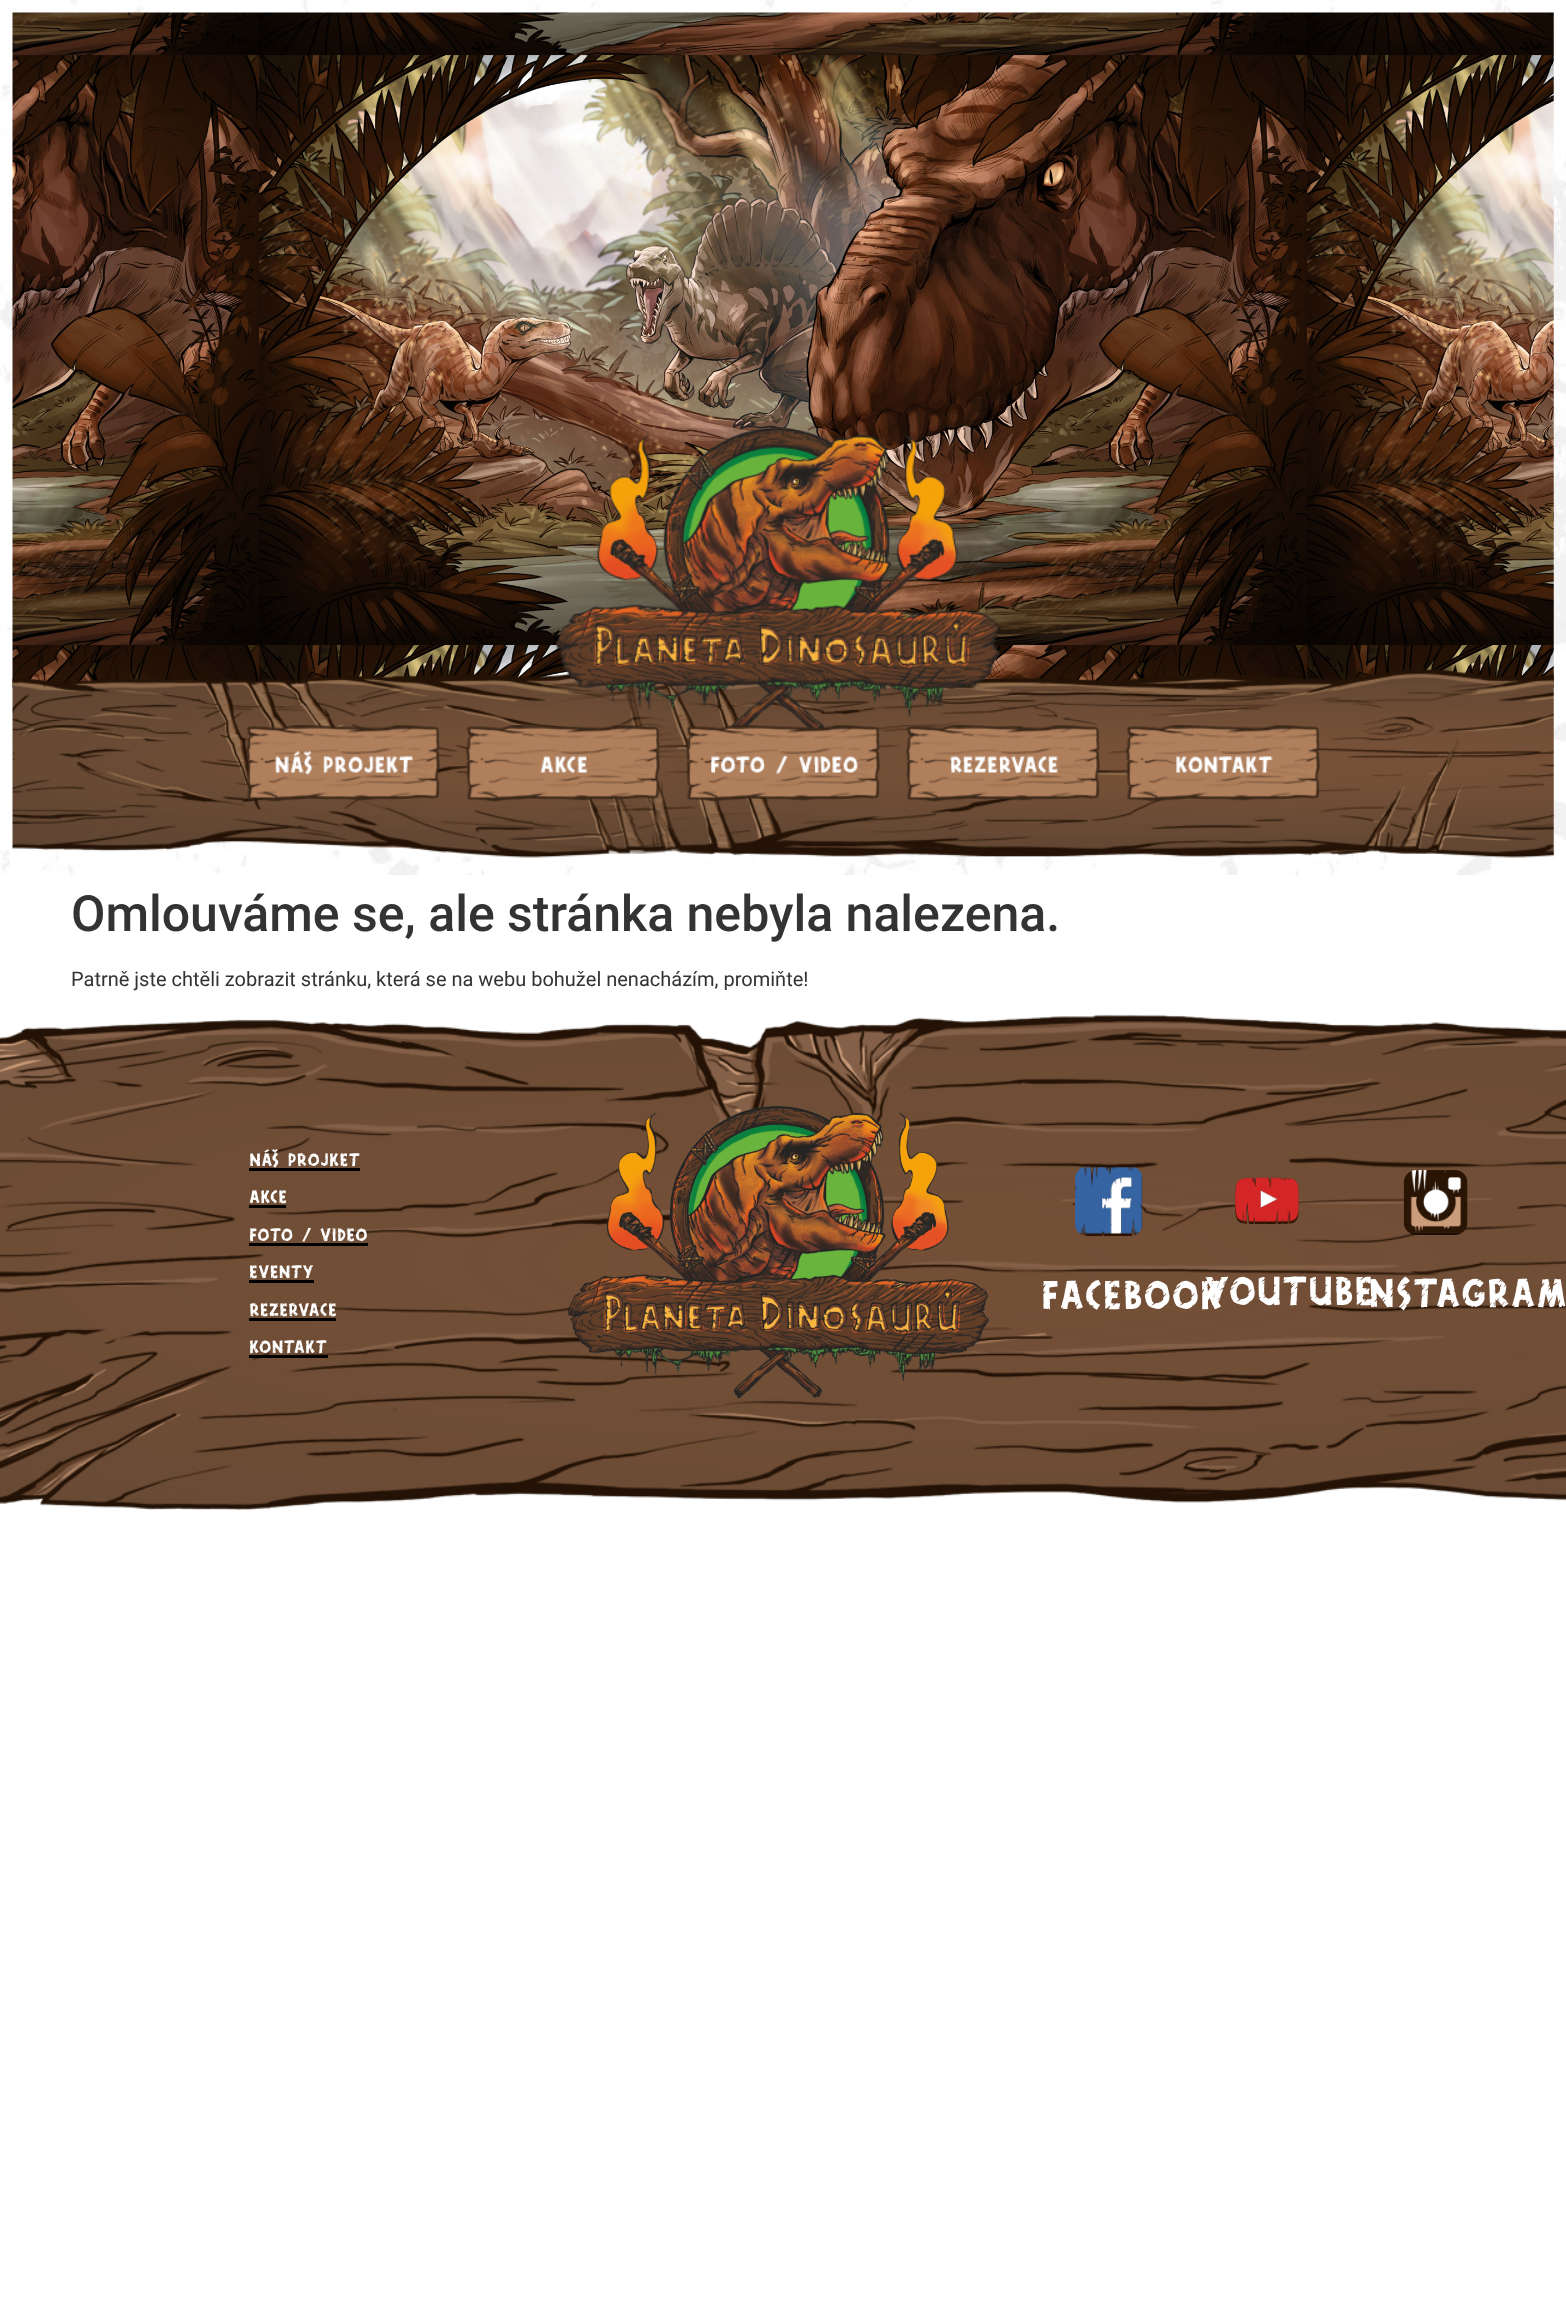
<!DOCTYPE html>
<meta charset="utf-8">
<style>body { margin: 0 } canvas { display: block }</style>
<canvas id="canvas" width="1566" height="2303"></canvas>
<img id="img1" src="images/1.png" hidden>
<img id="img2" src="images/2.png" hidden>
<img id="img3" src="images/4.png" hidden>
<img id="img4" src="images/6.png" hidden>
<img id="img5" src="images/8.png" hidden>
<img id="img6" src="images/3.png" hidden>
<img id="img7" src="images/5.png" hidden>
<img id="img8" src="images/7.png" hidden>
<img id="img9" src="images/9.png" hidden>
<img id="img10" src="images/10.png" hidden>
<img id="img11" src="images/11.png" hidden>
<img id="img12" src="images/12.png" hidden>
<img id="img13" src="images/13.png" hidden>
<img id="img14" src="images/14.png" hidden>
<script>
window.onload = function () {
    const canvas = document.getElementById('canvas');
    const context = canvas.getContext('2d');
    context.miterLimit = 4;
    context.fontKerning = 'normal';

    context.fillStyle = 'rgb(255, 255, 255)';
    context.fillRect(0, 0, 1566, 2303);
    context.drawImage(document.getElementById('img1'), 0, 0, 1566, 875);
    context.drawImage(document.getElementById('img2'), 12, 12, 1542, 676);
    context.drawImage(document.getElementById('img3'), 12, 662, 1542, 201);
    context.drawImage(document.getElementById('img4'), 466, 725, 194, 77);
    context.drawImage(document.getElementById('img5'), 906, 725, 194, 77);
    context.drawImage(document.getElementById('img6'), 556, 427, 444, 302);
    context.drawImage(document.getElementById('img7'), 246, 725, 194, 77);
    context.drawImage(document.getElementById('img8'), 686, 725, 194, 77);
    context.drawImage(document.getElementById('img9'), 1126, 725, 194, 77);
    context.drawImage(document.getElementById('img10'), 0, 1014, 1566, 496);
    context.fillStyle = 'rgb(0, 0, 0)';
    context.fillRect(249, 1168, 111, 3);
    context.fillRect(249, 1205, 37, 3);
    context.fillRect(249, 1243, 119, 3);
    context.fillRect(249, 1280, 65, 3);
    context.fillRect(249, 1318, 87, 3);
    context.fillRect(249, 1355, 79, 3);
    context.drawImage(document.getElementById('img11'), 567, 1105, 422, 294);
    context.drawImage(document.getElementById('img12'), 1075, 1167, 68, 70);
    context.drawImage(document.getElementById('img13'), 1235, 1177, 64, 47);
    context.drawImage(document.getElementById('img14'), 1403, 1170, 65, 65);
    context.font = '500 50px Roboto';
    context.fillStyle = 'rgb(51, 51, 51)';
    context.fillText('Omlouváme se, ale stránka nebyla nalezena.', 71, 931);
    context.font = '20px Roboto';
    context.fillText('Patrně jste chtěli zobrazit stránku, která se na webu bohužel nenacházím, promiňte!', 71, 986);
    context.font = '25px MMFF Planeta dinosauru';
    context.fillStyle = 'rgb(255, 255, 255)';
    context.fillText('NÁŠ PROJKET', 249, 1166);
    context.fillText('AKCE', 249, 1203);
    context.fillText('FOTO / VIDEO', 249, 1241);
    context.fillText('EVENTY', 249, 1278);
    context.fillText('REZERVACE', 249, 1316);
    context.fillText('KONTAKT', 249, 1353);
    context.font = '56px MMFF Planeta dinosauru';
    context.fillText('FACEBOOK', 1041, 1309);
    context.fillText('YouTube', 1204, 1305);
    context.fillText('nstagram', 1368, 1307);
};
</script>
